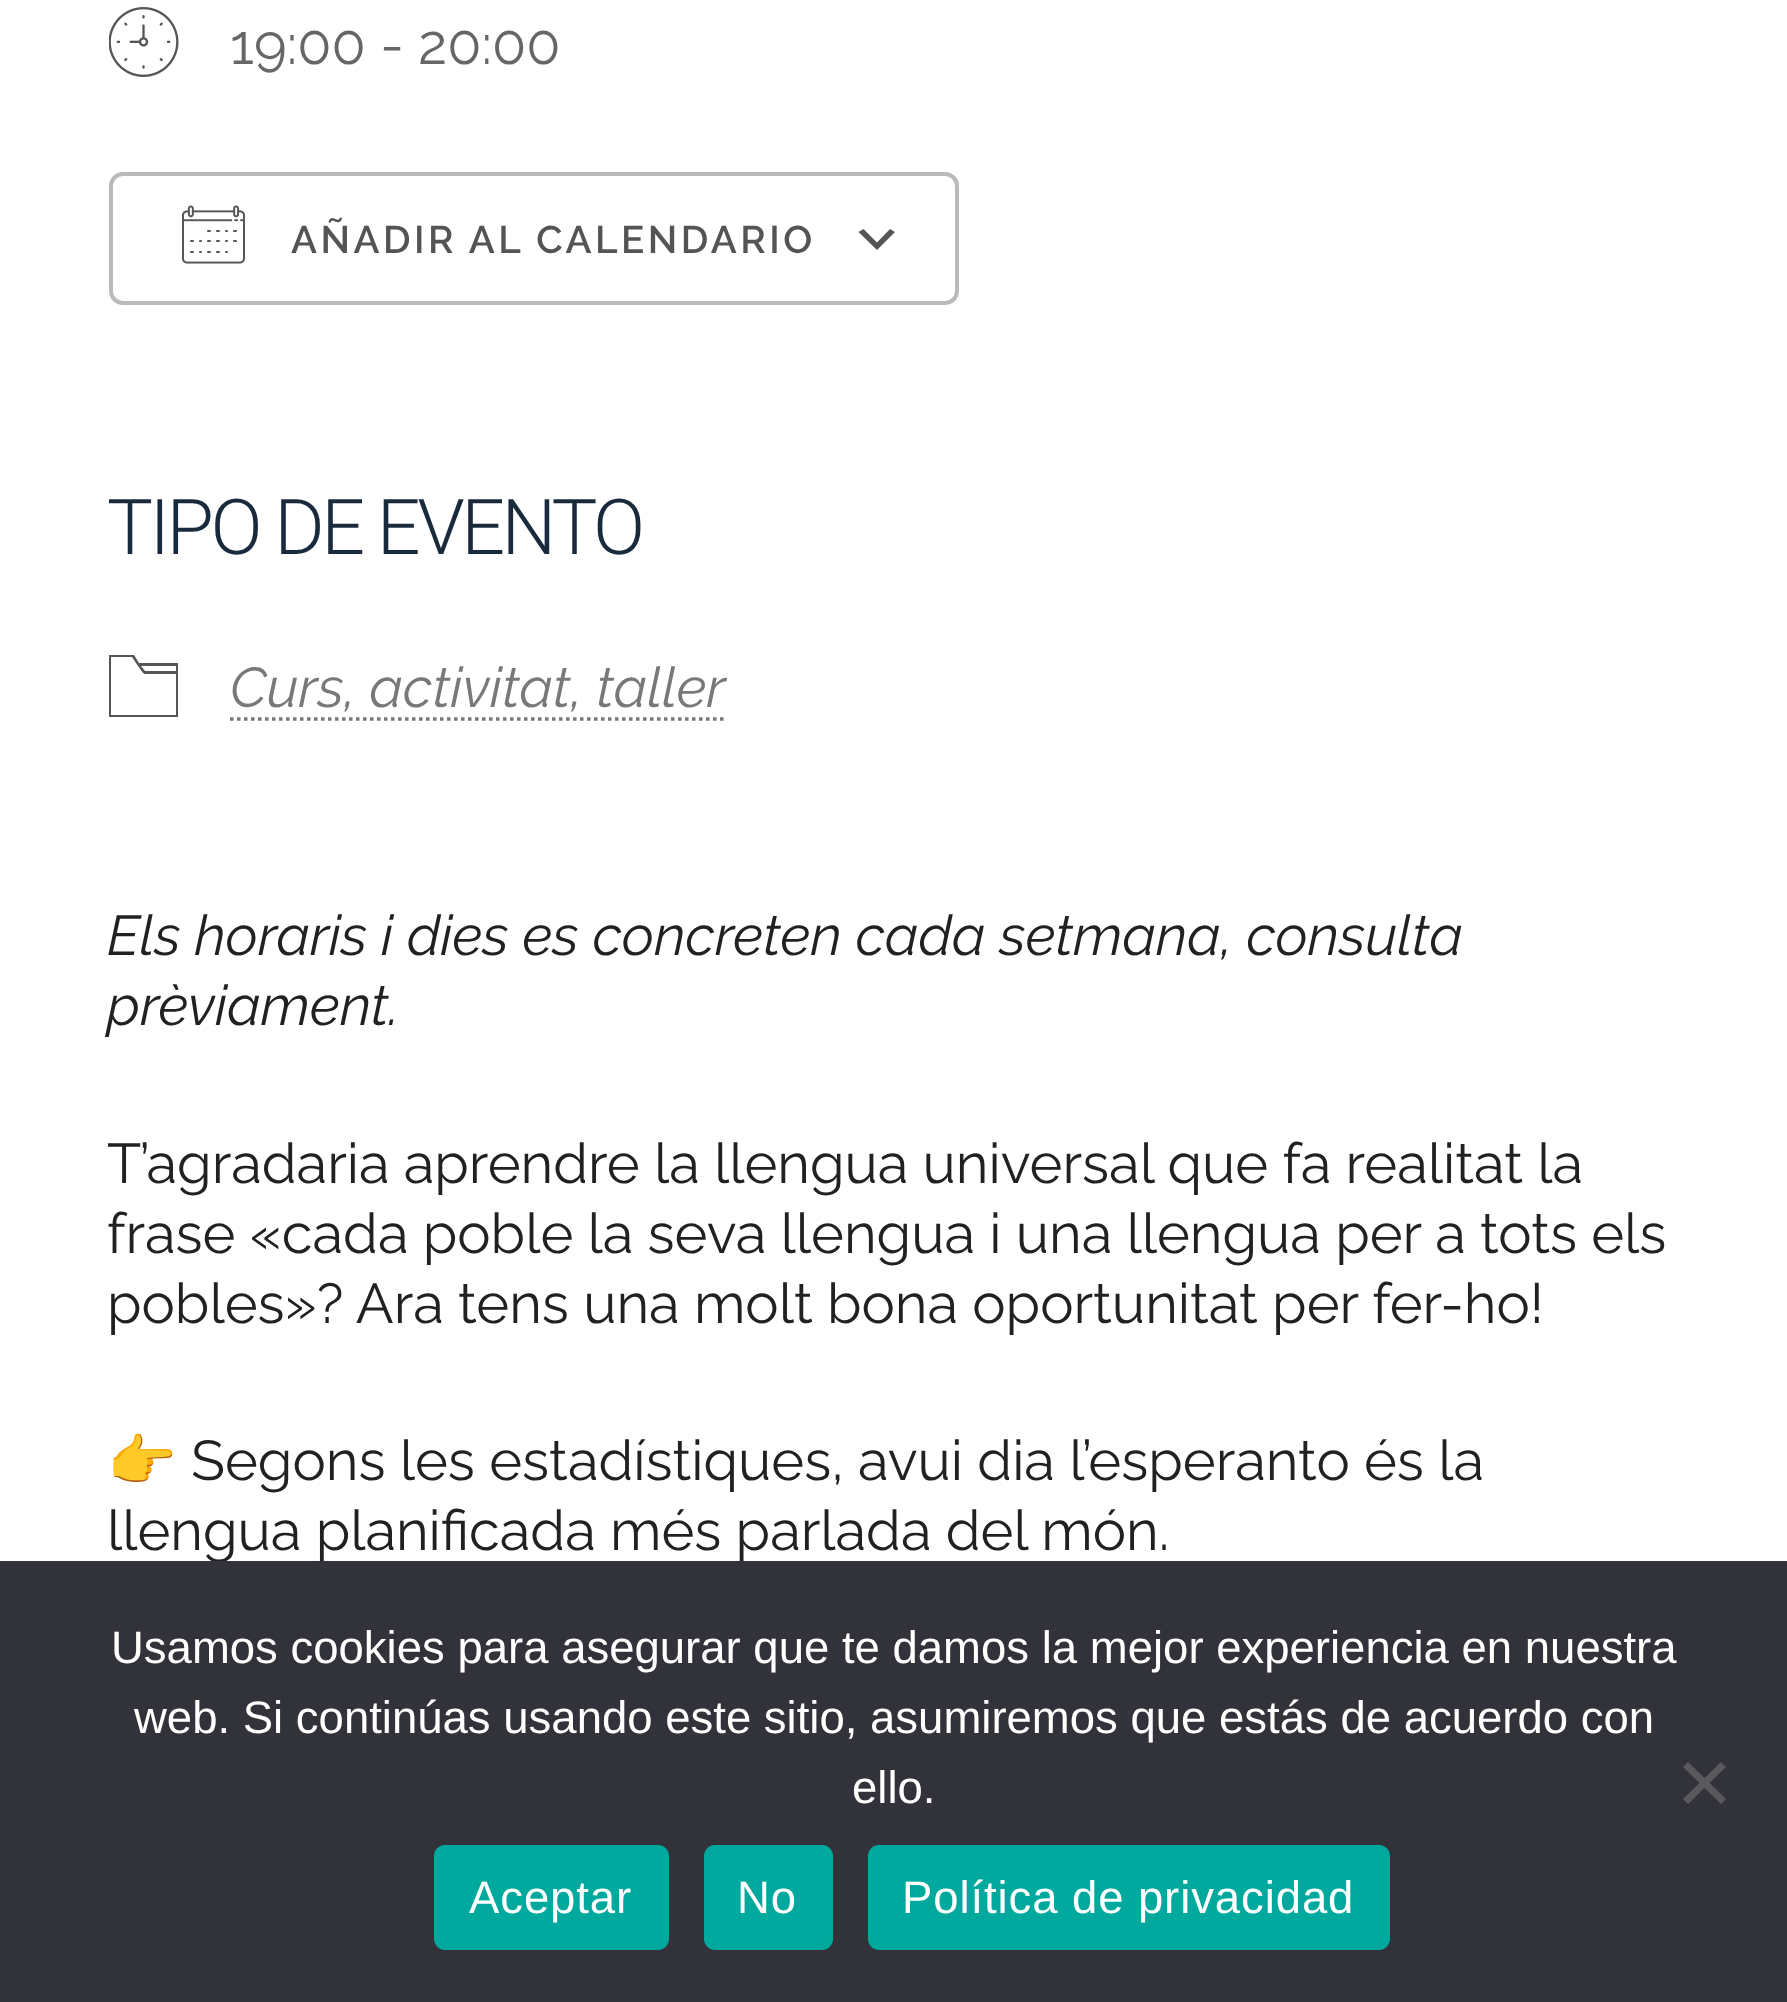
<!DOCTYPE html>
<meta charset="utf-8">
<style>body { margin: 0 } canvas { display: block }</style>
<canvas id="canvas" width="1787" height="2002"></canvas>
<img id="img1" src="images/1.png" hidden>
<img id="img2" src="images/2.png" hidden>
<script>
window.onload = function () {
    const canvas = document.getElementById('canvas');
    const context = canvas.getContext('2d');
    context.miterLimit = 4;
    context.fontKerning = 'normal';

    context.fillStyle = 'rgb(255, 255, 255)';
    context.fillRect(0, 0, 1787, 2002);
    context.drawImage(document.getElementById('img1'), 109, 7, 70, 70);
    context.fillStyle = 'rgb(85, 85, 85)';
    context.beginPath();
    context.moveTo(863.5, 229);
    context.lineTo(877, 242.5);
    context.lineTo(890, 229);
    context.lineTo(895, 232);
    context.lineTo(877, 250);
    context.lineTo(858.5, 232);
    context.closePath();
    context.fill();
    context.beginPath();
    context.roundRect(111, 174, 846, 129, 12);
    context.strokeStyle = 'rgb(186, 186, 186)';
    context.lineWidth = 4;
    context.stroke();
    context.drawImage(document.getElementById('img2'), 182, 205, 63, 59);
    context.save();
    context.beginPath();
    context.rect(109, 651, 70, 70);
    context.clip();
    context.beginPath();
    context.moveTo(139, 663);
    context.lineTo(134, 655);
    context.lineTo(108, 655);
    context.lineTo(108, 717);
    context.lineTo(178, 717);
    context.lineTo(178, 663);
    context.closePath();
    context.moveTo(176, 666);
    context.lineTo(176, 671);
    context.lineTo(145, 671);
    context.lineTo(141, 666);
    context.closePath();
    context.moveTo(111, 715);
    context.lineTo(111, 657);
    context.lineTo(132, 657);
    context.lineTo(138, 666);
    context.bezierCurveTo(139, 667, 143, 674, 145, 674);
    context.lineTo(176, 674);
    context.lineTo(176, 715);
    context.closePath();
    context.fill();
    context.restore();
    context.beginPath();
    context.moveTo(230, 719);
    context.lineTo(725.5, 719);
    context.strokeStyle = 'rgb(120, 120, 120)';
    context.lineWidth = 3.5;
    context.setLineDash([3.5, 3.5]);
    context.stroke();
    context.font = '56px Raleway';
    context.fillStyle = 'rgb(102, 102, 102)';
    context.fillText('19:00 - 20:00', 230, 64);
    context.letterSpacing = '3.5px';
    context.font = '600 38.5px Raleway';
    context.fillStyle = 'rgb(84, 84, 84)';
    context.fillText('AÑADIR AL CALENDARIO', 291, 253);
    context.letterSpacing = '-3.5px';
    context.font = '300 77px Roboto';
    context.fillStyle = 'rgb(25, 42, 61)';
    context.fillText('TIPO DE EVENTO', 107, 554);
    context.letterSpacing = '0px';
    context.font = 'italic 56px Raleway';
    context.fillStyle = 'rgb(120, 120, 120)';
    context.fillText('Curs, activitat, taller', 230, 707);
    context.fillStyle = 'rgb(33, 33, 33)';
    context.fillText('Els horaris i dies es concreten cada setmana, consulta', 107, 955);
    context.fillText('prèviament.', 107, 1025);
    context.font = '56px Raleway';
    context.fillText('T’agradaria aprendre la llengua universal que fa realitat la', 107, 1183);
    context.fillText('frase «cada poble la seva llengua i una llengua per a tots els', 107, 1253);
    context.fillText('pobles»? Ara tens una molt bona oportunitat per fer-ho!', 107, 1323);
    context.font = '56px Noto Color Emoji';
    context.fillText('👉', 107, 1480);
    context.font = '56px Raleway';
    context.fillText('Segons les estadístiques, avui dia l’esperanto és la', 191, 1480);
    context.fillText('llengua planificada més parlada del món.', 107, 1550);
    context.fillStyle = 'rgb(50, 50, 58)';
    context.fillRect(0, 1561, 1787, 441);
    context.font = '45.5px Liberation Sans';
    context.fillStyle = 'rgb(255, 255, 255)';
    context.fillText('Usamos cookies para asegurar que te damos la mejor experiencia en nuestra', 111, 1663);
    context.fillText('web. Si continúas usando este sitio, asumiremos que estás de acuerdo con', 134, 1733);
    context.fillText('ello.', 852, 1803);
    context.fillStyle = 'rgb(89, 89, 93)';
    context.beginPath();
    context.moveTo(1721, 1762);
    context.lineTo(1726, 1767);
    context.lineTo(1688, 1804);
    context.lineTo(1683, 1799);
    context.closePath();
    context.fill();
    context.beginPath();
    context.moveTo(1683, 1767);
    context.lineTo(1688, 1762);
    context.lineTo(1726, 1799);
    context.lineTo(1721, 1804);
    context.closePath();
    context.fill();
    context.fillStyle = 'rgb(0, 169, 157)';
    context.beginPath();
    context.roundRect(434, 1845, 235, 105, 11);
    context.fill();
    context.letterSpacing = '0.9px';
    context.fillStyle = 'rgb(255, 255, 255)';
    context.fillText('Aceptar', 469, 1913);
    context.fillStyle = 'rgb(0, 169, 157)';
    context.beginPath();
    context.roundRect(704, 1845, 129, 105, 11);
    context.fill();
    context.fillStyle = 'rgb(255, 255, 255)';
    context.fillText('No', 737, 1913);
    context.fillStyle = 'rgb(0, 169, 157)';
    context.beginPath();
    context.roundRect(868, 1845, 522, 105, 11);
    context.fill();
    context.fillStyle = 'rgb(255, 255, 255)';
    context.fillText('Política de privacidad', 902, 1913);
};
</script>
